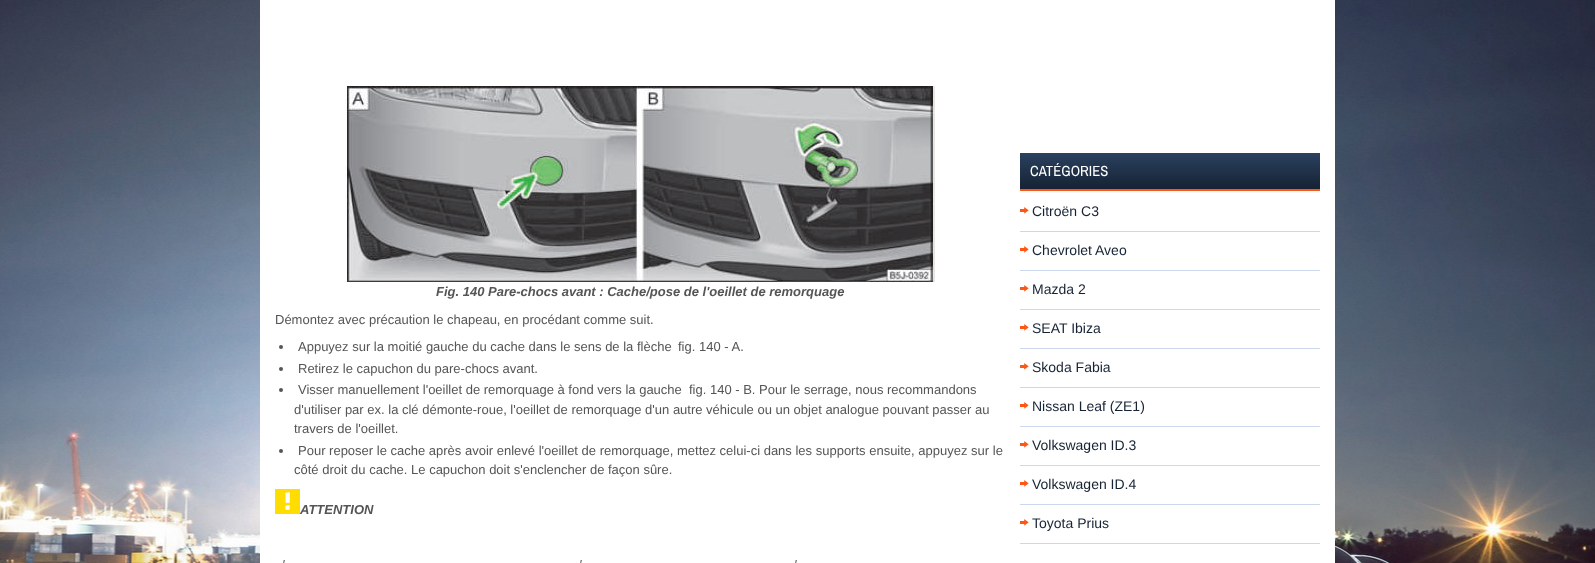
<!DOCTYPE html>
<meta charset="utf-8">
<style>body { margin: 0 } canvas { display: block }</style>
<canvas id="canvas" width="1595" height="563"></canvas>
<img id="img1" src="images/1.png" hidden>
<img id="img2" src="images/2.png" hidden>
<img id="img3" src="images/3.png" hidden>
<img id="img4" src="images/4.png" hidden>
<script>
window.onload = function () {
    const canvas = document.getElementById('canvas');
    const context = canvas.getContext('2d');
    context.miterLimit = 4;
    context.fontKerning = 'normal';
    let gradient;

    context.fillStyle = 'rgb(255, 255, 255)';
    context.fillRect(0, 0, 1595, 563);
    context.drawImage(document.getElementById('img1'), 0, 0, 1595, 563);
    context.fillRect(260, 0, 1075, 563);
    context.drawImage(document.getElementById('img2'), 345, 86, 590, 196);
    context.fillStyle = 'rgb(85, 85, 85)';
    context.beginPath();
    context.arc(281, 347, 2, 0, 2 * Math.PI);
    context.fill();
    context.beginPath();
    context.arc(281, 369, 2, 0, 2 * Math.PI);
    context.fill();
    context.beginPath();
    context.arc(281, 390, 2, 0, 2 * Math.PI);
    context.fill();
    context.beginPath();
    context.arc(281, 451, 2, 0, 2 * Math.PI);
    context.fill();
    context.drawImage(document.getElementById('img3'), 275, 489, 25, 25);
    gradient = context.createLinearGradient(1170, 153, 1170, 189);
    gradient.addColorStop(0, 'rgb(42, 65, 95)');
    gradient.addColorStop(1, 'rgb(22, 34, 52)');
    context.fillStyle = gradient;
    context.fillRect(1020, 153, 300, 36);
    context.fillStyle = 'rgb(252, 87, 23)';
    context.fillRect(1020, 189, 300, 2);
    context.drawImage(document.getElementById('img4'), 1020, 207, 9, 7);
    context.fillStyle = 'rgb(204, 215, 237)';
    context.fillRect(1020, 231, 300, 1);
    context.drawImage(document.getElementById('img4'), 1020, 246, 9, 7);
    context.fillRect(1020, 270, 300, 1);
    context.drawImage(document.getElementById('img4'), 1020, 285, 9, 7);
    context.fillRect(1020, 309, 300, 1);
    context.drawImage(document.getElementById('img4'), 1020, 324, 9, 7);
    context.fillRect(1020, 348, 300, 1);
    context.drawImage(document.getElementById('img4'), 1020, 363, 9, 7);
    context.fillRect(1020, 387, 300, 1);
    context.drawImage(document.getElementById('img4'), 1020, 402, 9, 7);
    context.fillRect(1020, 426, 300, 1);
    context.drawImage(document.getElementById('img4'), 1020, 441, 9, 7);
    context.fillRect(1020, 465, 300, 1);
    context.drawImage(document.getElementById('img4'), 1020, 480, 9, 7);
    context.fillRect(1020, 504, 300, 1);
    context.drawImage(document.getElementById('img4'), 1020, 519, 9, 7);
    context.fillRect(1020, 543, 300, 1);
    context.font = 'italic bold 13px Liberation Sans';
    context.fillStyle = 'rgb(85, 85, 85)';
    context.fillText('Fig. 140 Pare-chocs avant : Cache/pose de l\'oeillet de remorquage', 436, 296);
    context.font = '13px Liberation Sans';
    context.fillText('Démontez avec précaution le chapeau, en procédant comme suit.', 275, 324);
    context.fillText('Appuyez sur la moitié gauche du cache dans le sens de la flèche', 298, 351);
    context.fillText('fig. 140 - A.', 678, 351);
    context.fillText('Retirez le capuchon du pare-chocs avant.', 298, 373);
    context.fillText('Visser manuellement l\'oeillet de remorquage à fond vers la gauche', 298, 394);
    context.fillText('fig. 140 - B. Pour le serrage, nous recommandons', 689, 394);
    context.fillText('d\'utiliser par ex. la clé démonte-roue, l\'oeillet de remorquage d\'un autre véhicule ou un objet analogue pouvant passer au', 294, 414);
    context.fillText('travers de l\'oeillet.', 294, 433);
    context.fillText('Pour reposer le cache après avoir enlevé l\'oeillet de remorquage, mettez celui-ci dans les supports ensuite, appuyez sur le', 298, 455);
    context.fillText('côté droit du cache. Le capuchon doit s\'enclencher de façon sûre.', 294, 474);
    context.font = 'italic bold 13px Liberation Sans';
    context.fillText('ATTENTION', 300, 514);
    context.font = 'italic 13px Liberation Sans';
    context.fillText('\'', 282, 569);
    context.fillText('\'', 579, 569);
    context.fillText('\'', 794, 569);
    context.font = '16px Pragati Narrow';
    context.fillStyle = 'rgb(255, 255, 255)';
    context.fillText('CATÉGORIES', 1030, 176);
    context.font = '14px Liberation Sans';
    context.fillStyle = 'rgb(22, 35, 52)';
    context.fillText('Citroën C3', 1032, 216);
    context.fillText('Chevrolet Aveo', 1032, 255);
    context.fillText('Mazda 2', 1032, 294);
    context.fillText('SEAT Ibiza', 1032, 333);
    context.fillText('Skoda Fabia', 1032, 372);
    context.fillText('Nissan Leaf (ZE1)', 1032, 411);
    context.fillText('Volkswagen ID.3', 1032, 450);
    context.fillText('Volkswagen ID.4', 1032, 489);
    context.fillText('Toyota Prius', 1032, 528);
};
</script>
